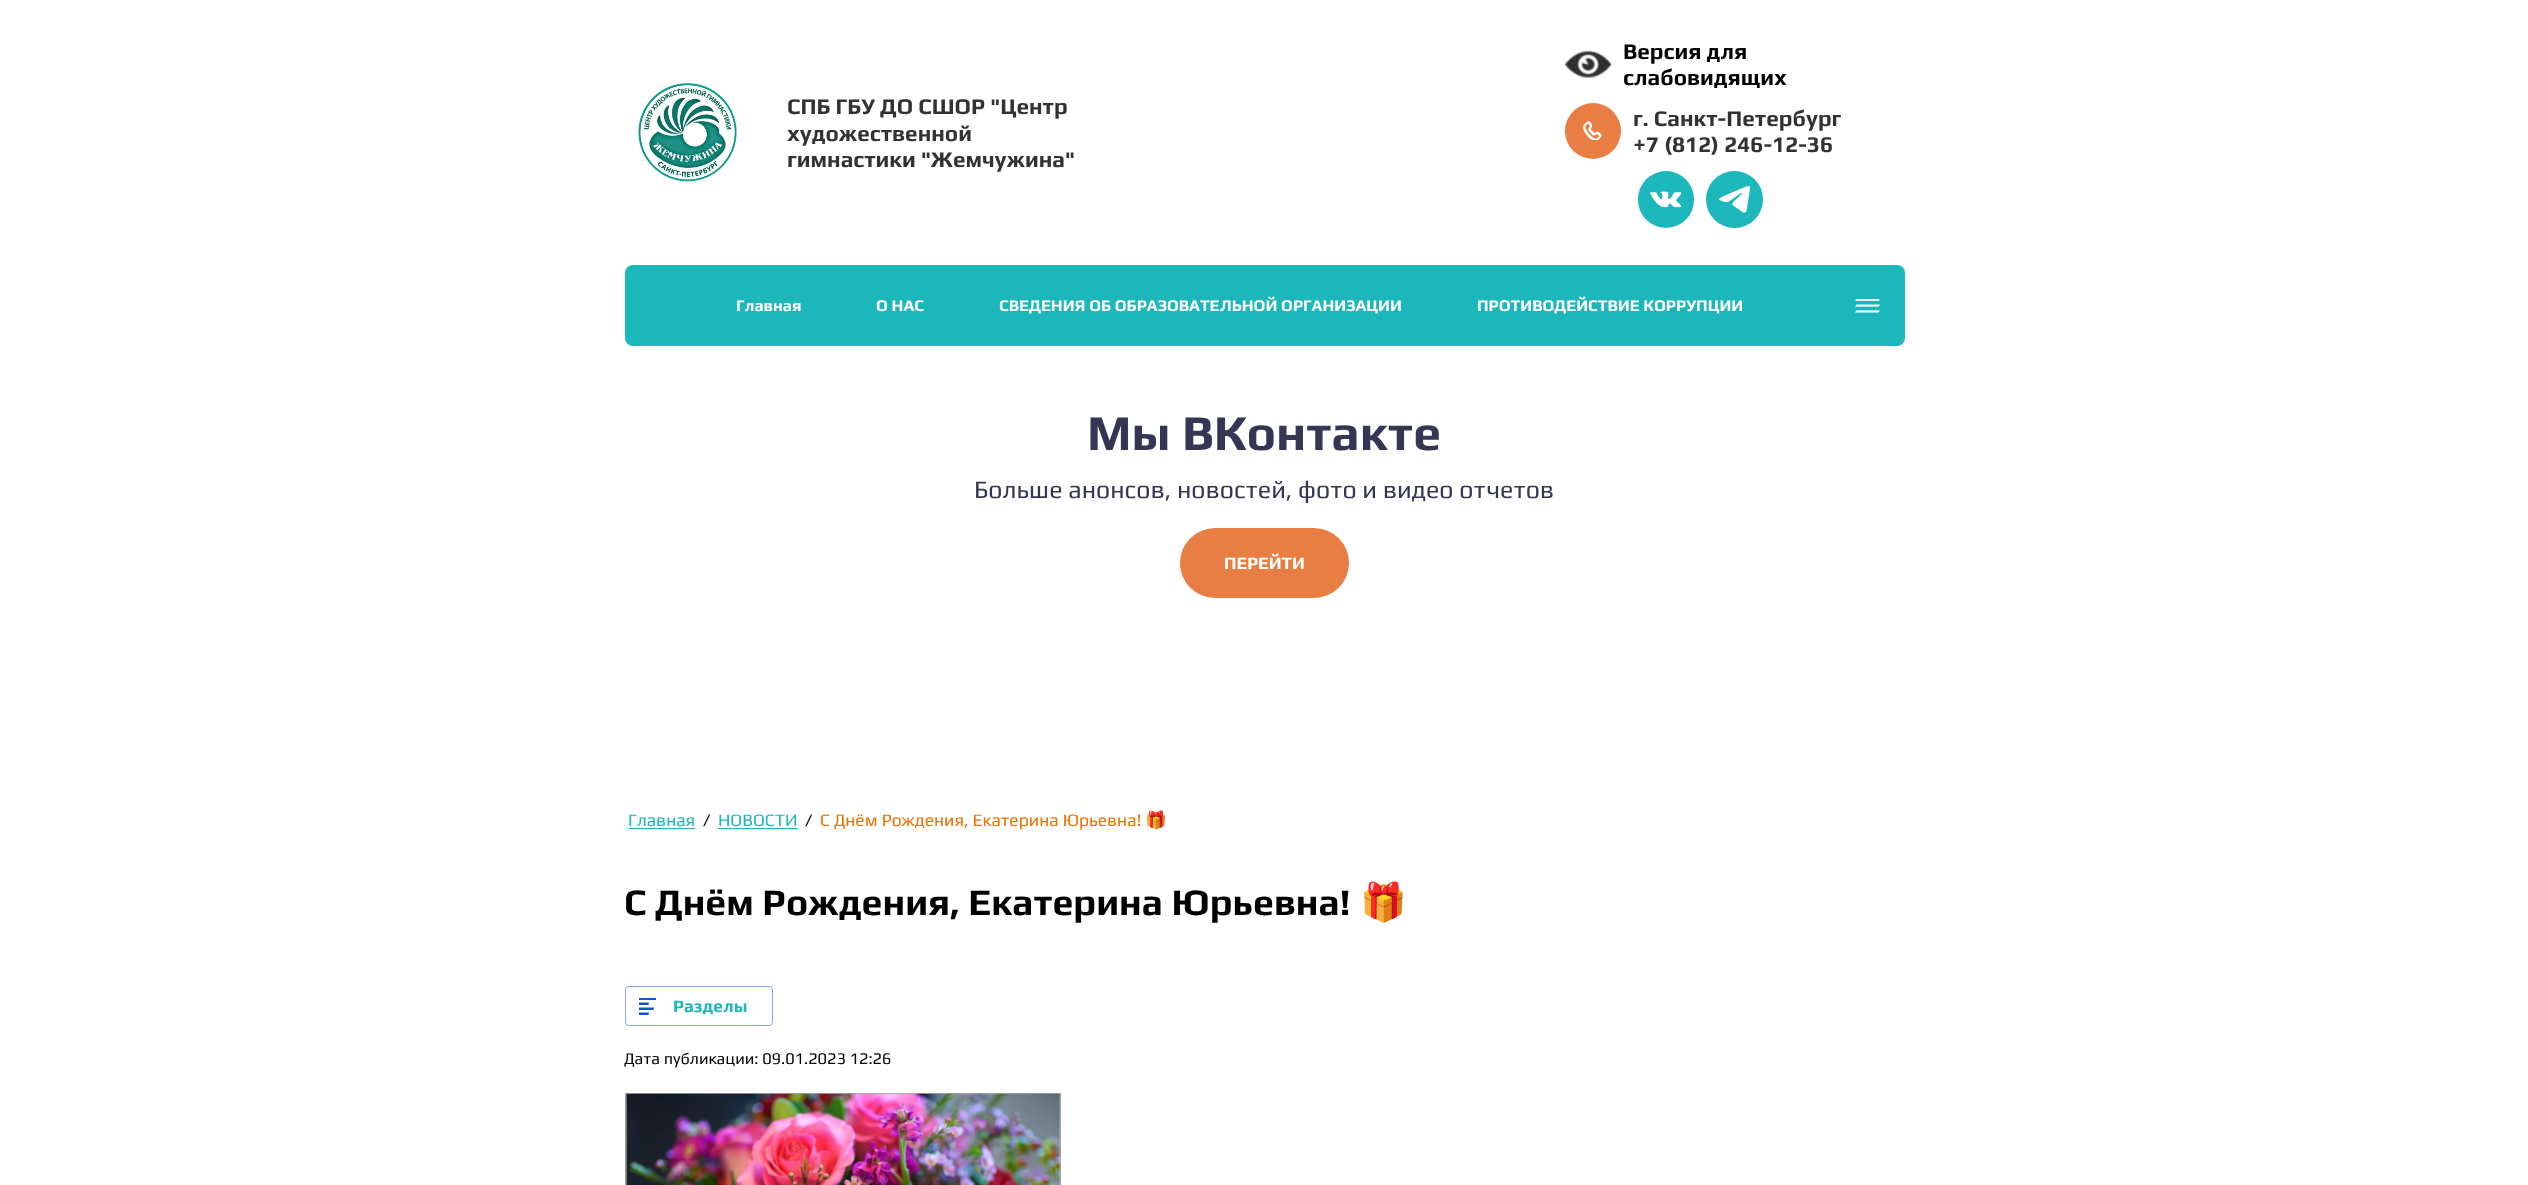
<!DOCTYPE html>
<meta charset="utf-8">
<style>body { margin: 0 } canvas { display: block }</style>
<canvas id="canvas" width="2528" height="1185"></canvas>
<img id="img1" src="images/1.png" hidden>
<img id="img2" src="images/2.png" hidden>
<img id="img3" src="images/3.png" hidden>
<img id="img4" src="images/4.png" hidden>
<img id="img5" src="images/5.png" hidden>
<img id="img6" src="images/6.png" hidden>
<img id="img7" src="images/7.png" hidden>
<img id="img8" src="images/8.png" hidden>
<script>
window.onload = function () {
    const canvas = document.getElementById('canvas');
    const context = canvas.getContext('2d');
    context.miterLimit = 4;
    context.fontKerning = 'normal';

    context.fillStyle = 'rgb(255, 255, 255)';
    context.fillRect(0, 0, 2528, 1185);
    context.drawImage(document.getElementById('img1'), 638, 83, 99, 99);
    context.drawImage(document.getElementById('img2'), 1564, 51, 48, 27);
    context.fillStyle = 'rgb(232, 126, 67)';
    context.beginPath();
    context.arc(1593, 131, 28, 0, 2 * Math.PI);
    context.fill();
    context.drawImage(document.getElementById('img3'), 1583, 121, 19, 19);
    context.fillStyle = 'rgb(28, 183, 187)';
    context.beginPath();
    context.roundRect(1638, 171, 56, 57, 28);
    context.fill();
    context.drawImage(document.getElementById('img4'), 1650, 191, 31, 17);
    context.beginPath();
    context.arc(1734.5, 199.5, 28.5, 0, 2 * Math.PI);
    context.fill();
    context.drawImage(document.getElementById('img5'), 1719, 186, 31, 27);
    context.beginPath();
    context.roundRect(625, 265, 1280, 81, 8);
    context.fill();
    context.drawImage(document.getElementById('img6'), 1855, 299, 25, 14);
    context.fillStyle = 'rgb(232, 126, 67)';
    context.beginPath();
    context.roundRect(1180, 528, 169, 70, 35);
    context.fill();
    context.fillStyle = 'rgb(28, 183, 187)';
    context.fillRect(629, 828, 66, 1);
    context.fillRect(718, 828, 80, 1);
    context.beginPath();
    context.roundRect(625.5, 986.5, 147, 39, 3.5);
    context.strokeStyle = 'rgb(136, 170, 230)';
    context.stroke();
    context.drawImage(document.getElementById('img7'), 639, 998, 17, 17);
    context.strokeStyle = 'rgb(170, 170, 170)';
    context.strokeRect(625.5, 1093.5, 435, 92);
    context.drawImage(document.getElementById('img8'), 625, 1093, 436, 92);
    context.font = 'bold 22.5px Play';
    context.fillStyle = 'rgb(50, 50, 50)';
    context.fillText('СПБ ГБУ ДО СШОР "Центр', 787, 114);
    context.fillText('художественной', 787, 141);
    context.fillText('гимнастики "Жемчужина"', 787, 167);
    context.fillStyle = 'rgb(0, 0, 0)';
    context.fillText('Версия для', 1623, 59);
    context.fillText('слабовидящих', 1623, 85);
    context.fillStyle = 'rgb(50, 50, 50)';
    context.fillText('г. Санкт-Петербург', 1633, 126);
    context.fillText('+7 (812) 246-12-36', 1633, 152);
    context.font = 'bold 16.25px Play';
    context.fillStyle = 'rgb(255, 255, 255)';
    context.fillText('Главная', 736, 311);
    context.fillText('О НАС', 876, 311);
    context.fillText('СВЕДЕНИЯ ОБ ОБРАЗОВАТЕЛЬНОЙ ОРГАНИЗАЦИИ', 999, 311);
    context.fillText('ПРОТИВОДЕЙСТВИЕ КОРРУПЦИИ', 1477, 311);
    context.font = 'bold 50px Play';
    context.fillStyle = 'rgb(53, 53, 84)';
    context.fillText('Мы ВКонтакте', 1087, 450);
    context.font = '25px Play';
    context.fillText('Больше анонсов, новостей, фото и видео отчетов', 974, 498);
    context.font = 'bold 17.5px Play';
    context.fillStyle = 'rgb(255, 255, 255)';
    context.fillText('ПЕРЕЙТИ', 1224, 569);
    context.font = '17.5px Play';
    context.fillStyle = 'rgb(28, 183, 187)';
    context.fillText('Главная', 628, 826);
    context.fillStyle = 'rgb(0, 0, 0)';
    context.fillText('/', 703, 826);
    context.fillStyle = 'rgb(28, 183, 187)';
    context.fillText('НОВОСТИ', 718, 826);
    context.fillStyle = 'rgb(0, 0, 0)';
    context.fillText('/', 805, 826);
    context.fillStyle = 'rgb(239, 113, 0)';
    context.fillText('С Днём Рождения, Екатерина Юрьевна!', 820, 826);
    context.font = '17.5px Noto Color Emoji';
    context.fillText('🎁', 1145, 826);
    context.font = 'bold 37.5px Play';
    context.fillStyle = 'rgb(0, 0, 0)';
    context.fillText('С Днём Рождения, Екатерина Юрьевна!', 624, 915);
    context.font = 'bold 37.5px Noto Color Emoji';
    context.fillText('🎁', 1360, 915);
    context.font = 'bold 17.5px Play';
    context.fillStyle = 'rgb(28, 183, 187)';
    context.fillText('Разделы', 673, 1012);
    context.font = '16.25px Play';
    context.fillStyle = 'rgb(0, 0, 0)';
    context.fillText('Дата публикации: 09.01.2023 12:26', 624, 1064);
};
</script>
